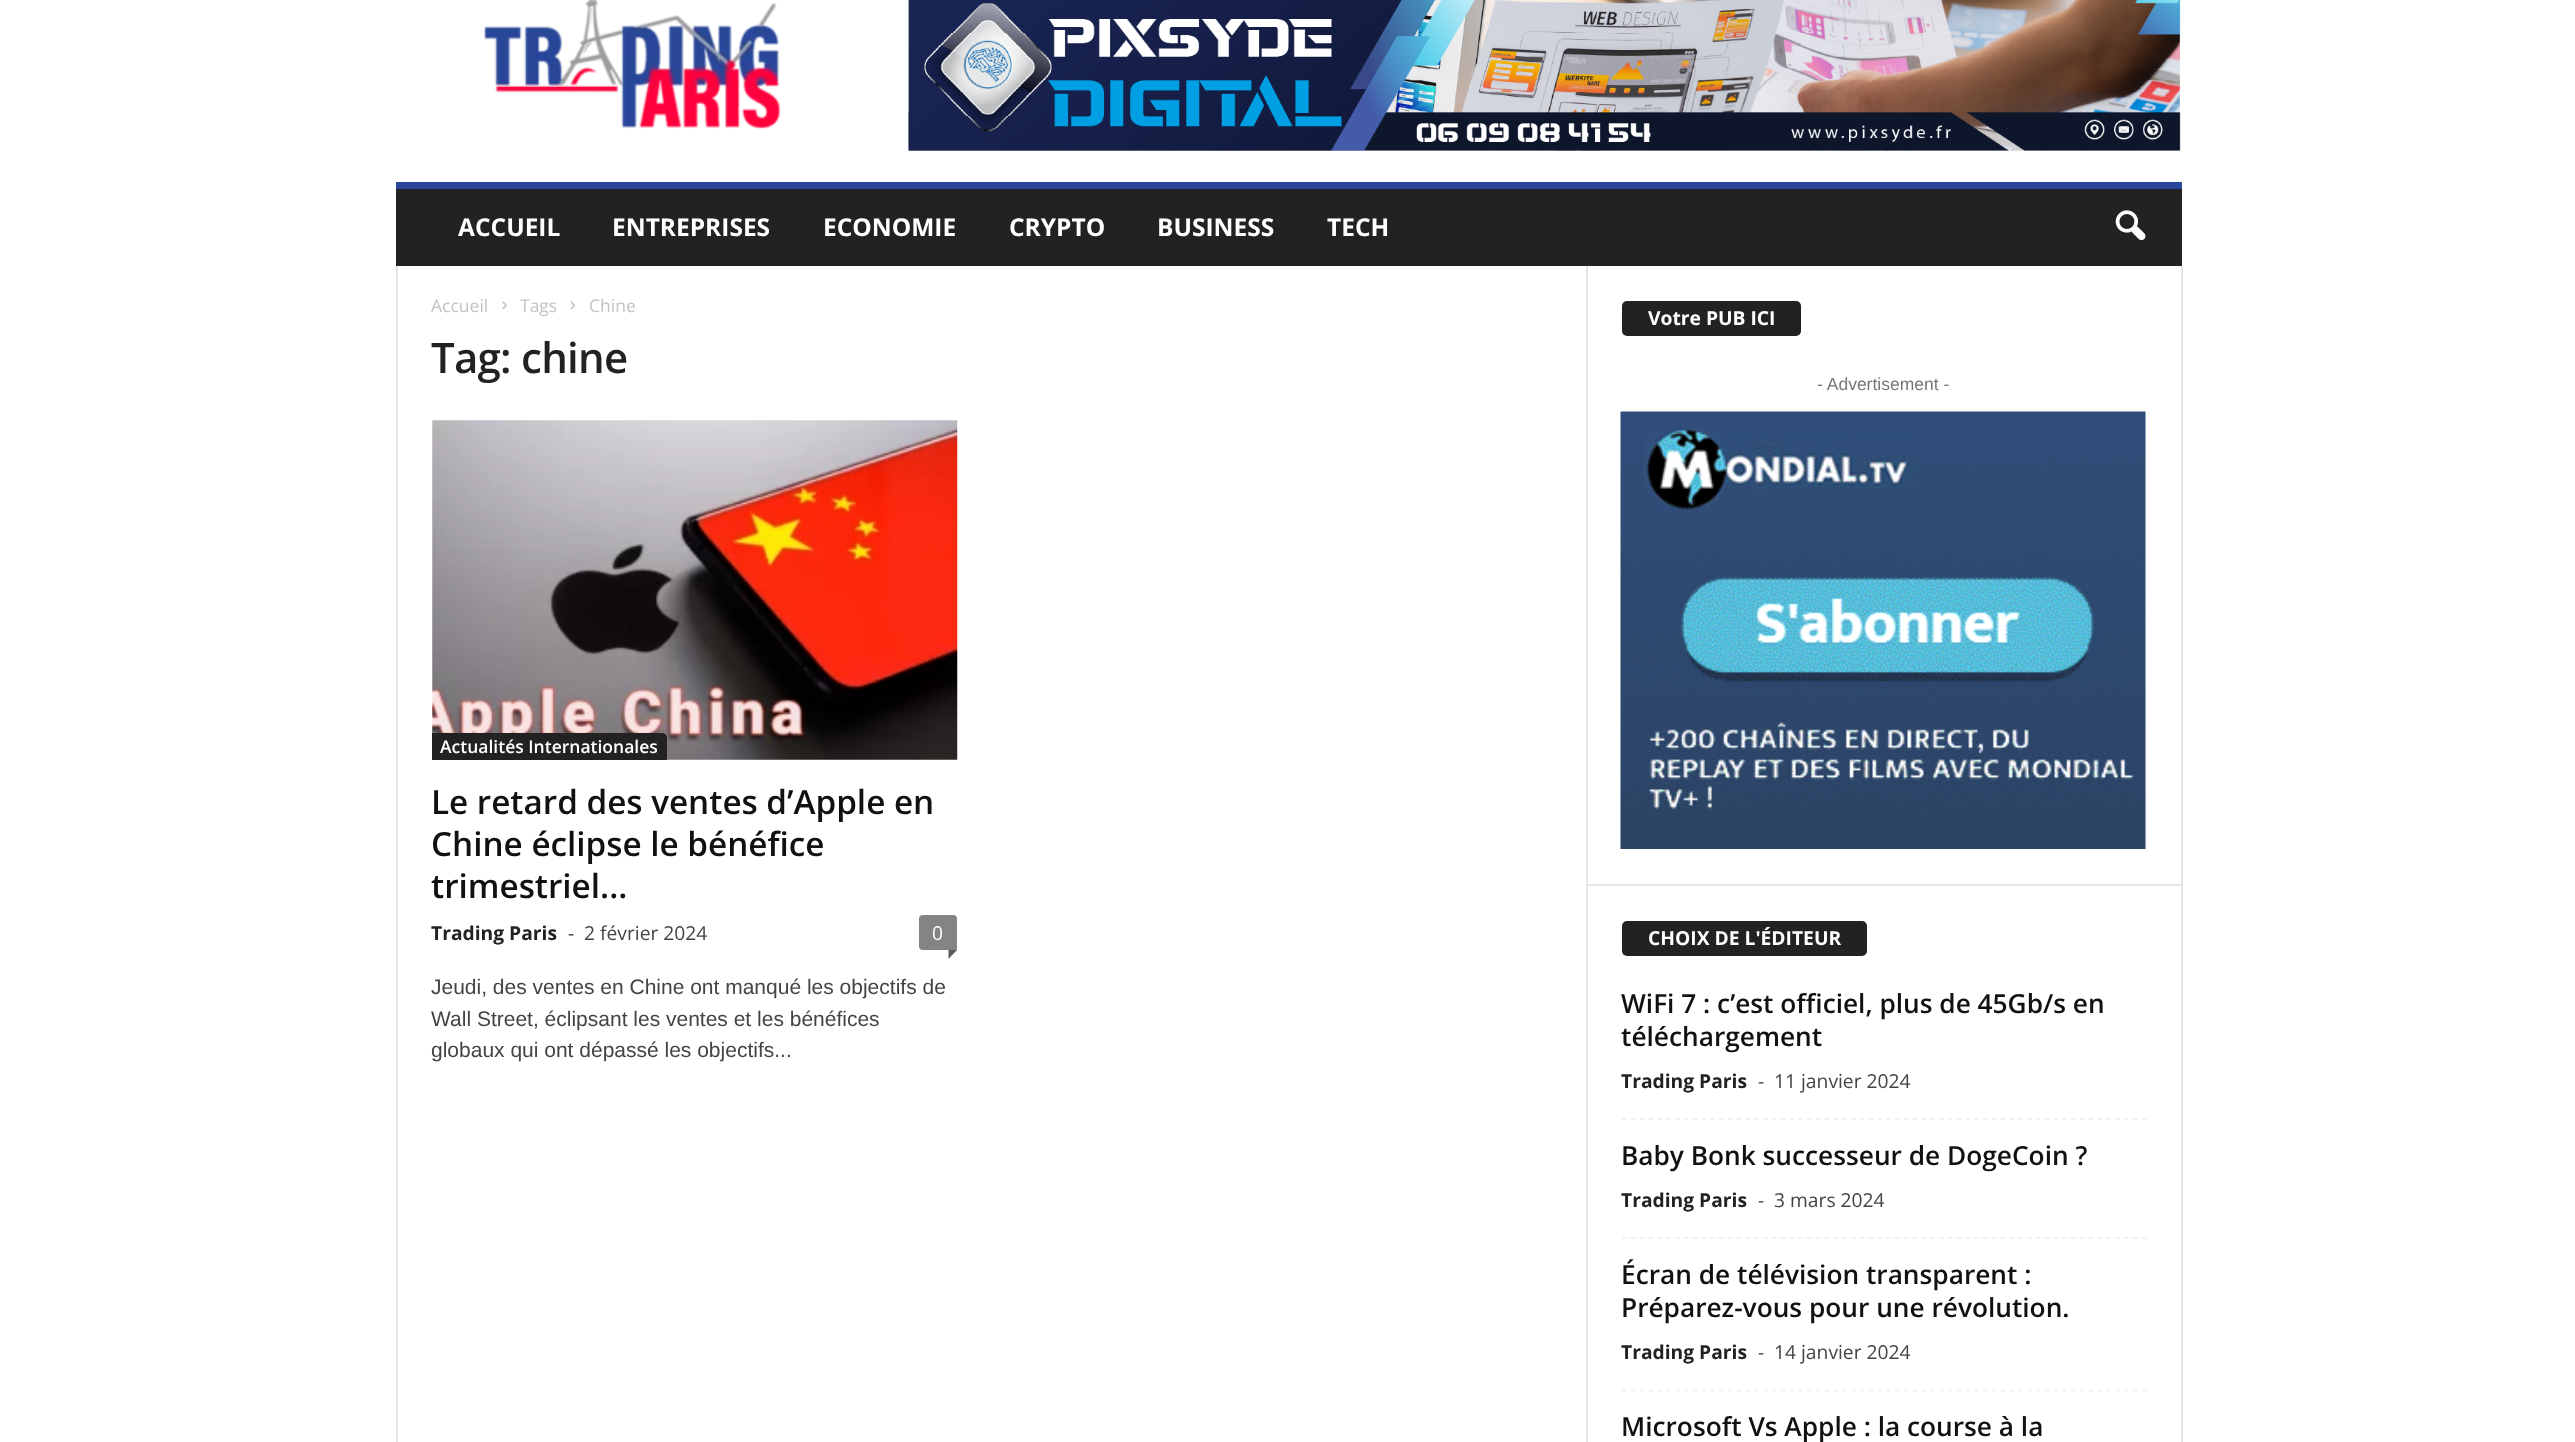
<!DOCTYPE html>
<meta charset="utf-8">
<style>body { margin: 0 } canvas { display: block }</style>
<canvas id="canvas" width="2575" height="1442"></canvas>
<img id="img1" src="images/1.png" hidden>
<img id="img2" src="images/2.png" hidden>
<img id="img3" src="images/3.png" hidden>
<img id="img4" src="images/4.png" hidden>
<img id="img5" src="images/5.png" hidden>
<img id="img6" src="images/6.png" hidden>
<img id="img7" src="images/7.png" hidden>
<script>
window.onload = function () {
    const canvas = document.getElementById('canvas');
    const context = canvas.getContext('2d');
    context.miterLimit = 4;
    context.fontKerning = 'normal';

    context.fillStyle = 'rgb(255, 255, 255)';
    context.fillRect(0, 0, 2575, 1442);
    context.drawImage(document.getElementById('img1'), 483, 0, 298, 129);
    context.drawImage(document.getElementById('img2'), 908, 0, 1273, 151);
    context.fillStyle = 'rgb(34, 34, 34)';
    context.fillRect(396, 189, 1786, 77);
    context.fillStyle = 'rgb(41, 70, 152)';
    context.fillRect(396, 182, 1786, 7);
    context.drawImage(document.getElementById('img3'), 2115, 210, 31, 31);
    context.fillStyle = 'rgb(230, 230, 230)';
    context.fillRect(396, 266, 2, 1176);
    context.drawImage(document.getElementById('img4'), 502, 301, 5, 9);
    context.drawImage(document.getElementById('img5'), 570, 301, 6, 9);
    context.drawImage(document.getElementById('img6'), 432, 420, 526, 340);
    context.fillStyle = 'rgb(34, 34, 34)';
    context.beginPath();
    context.roundRect(432, 733, 235, 27, [0, 5, 0, 0]);
    context.fill();
    context.fillStyle = 'rgb(132, 132, 132)';
    context.beginPath();
    context.roundRect(919, 915, 38, 35, [4, 4, 0, 4]);
    context.fill();
    context.fillStyle = 'rgb(91, 91, 91)';
    context.beginPath();
    context.moveTo(948.5, 950);
    context.lineTo(957, 950);
    context.lineTo(948.5, 959);
    context.closePath();
    context.fill();
    context.fillStyle = 'rgb(230, 230, 230)';
    context.fillRect(1586, 266, 2, 1176);
    context.fillStyle = 'rgb(34, 34, 34)';
    context.beginPath();
    context.roundRect(1622, 301, 179, 35, 5);
    context.fill();
    context.drawImage(document.getElementById('img7'), 1620, 411, 526, 438);
    context.fillStyle = 'rgb(230, 230, 230)';
    context.fillRect(1587, 884, 594, 2);
    context.fillStyle = 'rgb(34, 34, 34)';
    context.beginPath();
    context.roundRect(1622, 921, 245, 35, 5);
    context.fill();
    context.beginPath();
    context.moveTo(1622, 1119);
    context.lineTo(2147, 1119);
    context.strokeStyle = 'rgb(241, 241, 241)';
    context.lineWidth = 1.8;
    context.setLineDash([5.25, 3.55]);
    context.stroke();
    context.beginPath();
    context.moveTo(1622, 1238);
    context.lineTo(2147, 1238);
    context.stroke();
    context.beginPath();
    context.moveTo(1622, 1390.5);
    context.lineTo(2147, 1390.5);
    context.stroke();
    context.fillStyle = 'rgb(230, 230, 230)';
    context.fillRect(2181, 266, 2, 1176);
    context.font = 'bold 24.5px Open Sans';
    context.fillStyle = 'rgb(255, 255, 255)';
    context.fillText('ACCUEIL', 458, 236);
    context.fillText('ENTREPRISES', 612, 236);
    context.fillText('ECONOMIE', 823, 236);
    context.fillText('CRYPTO', 1009, 236);
    context.fillText('BUSINESS', 1157, 236);
    context.fillText('TECH', 1327, 236);
    context.font = '17.5px Open Sans';
    context.fillStyle = 'rgb(195, 195, 195)';
    context.fillText('Accueil', 431, 312);
    context.fillText('Tags', 520, 312);
    context.fillText('Chine', 589, 312);
    context.letterSpacing = '-0.75px';
    context.font = '600 42px Open Sans';
    context.fillStyle = 'rgb(34, 34, 34)';
    context.fillText('Tag: chine', 431, 373);
    context.letterSpacing = '0px';
    context.font = '600 17.5px Open Sans';
    context.fillStyle = 'rgb(255, 255, 255)';
    context.fillText('Actualités Internationales', 440, 753);
    context.font = '600 33.25px Open Sans';
    context.fillStyle = 'rgb(17, 17, 17)';
    context.fillText('Le retard des ventes d’Apple en', 431, 814);
    context.fillText('Chine éclipse le bénéfice', 431, 856);
    context.fillText('trimestriel...', 431, 898);
    context.font = 'bold 19.25px Open Sans';
    context.fillStyle = 'rgb(34, 34, 34)';
    context.fillText('Trading Paris', 431, 940);
    context.font = '19.25px Open Sans';
    context.fillStyle = 'rgb(68, 68, 68)';
    context.fillText('-', 568, 940);
    context.fillText('2 février 2024', 584, 940);
    context.fillStyle = 'rgb(255, 255, 255)';
    context.fillText('0', 932, 940);
    context.font = '21px Liberation Sans';
    context.fillStyle = 'rgb(68, 68, 68)';
    context.fillText('Jeudi, des ventes en Chine ont manqué les objectifs de', 431, 994);
    context.fillText('Wall Street, éclipsant les ventes et les bénéfices', 431, 1026);
    context.fillText('globaux qui ont dépassé les objectifs...', 431, 1057);
    context.font = 'bold 19.25px Open Sans';
    context.fillStyle = 'rgb(255, 255, 255)';
    context.fillText('Votre PUB ICI', 1648, 325);
    context.font = '17.5px Liberation Sans';
    context.fillStyle = 'rgb(118, 118, 118)';
    context.fillText('- Advertisement -', 1817, 390);
    context.font = 'bold 19.25px Open Sans';
    context.fillStyle = 'rgb(255, 255, 255)';
    context.fillText('CHOIX DE L\'ÉDITEUR', 1648, 945);
    context.font = '600 26.25px Open Sans';
    context.fillStyle = 'rgb(17, 17, 17)';
    context.fillText('WiFi 7 : c’est officiel, plus de 45Gb/s en', 1621, 1013);
    context.fillText('téléchargement', 1621, 1046);
    context.font = 'bold 19.25px Open Sans';
    context.fillStyle = 'rgb(34, 34, 34)';
    context.fillText('Trading Paris', 1621, 1088);
    context.font = '19.25px Open Sans';
    context.fillStyle = 'rgb(68, 68, 68)';
    context.fillText('-', 1758, 1088);
    context.fillText('11 janvier 2024', 1774, 1088);
    context.font = '600 26.25px Open Sans';
    context.fillStyle = 'rgb(17, 17, 17)';
    context.fillText('Baby Bonk successeur de DogeCoin ?', 1621, 1165);
    context.font = 'bold 19.25px Open Sans';
    context.fillStyle = 'rgb(34, 34, 34)';
    context.fillText('Trading Paris', 1621, 1207);
    context.font = '19.25px Open Sans';
    context.fillStyle = 'rgb(68, 68, 68)';
    context.fillText('-', 1758, 1207);
    context.fillText('3 mars 2024', 1774, 1207);
    context.font = '600 26.25px Open Sans';
    context.fillStyle = 'rgb(17, 17, 17)';
    context.fillText('Écran de télévision transparent :', 1621, 1284);
    context.fillText('Préparez-vous pour une révolution.', 1621, 1317);
    context.font = 'bold 19.25px Open Sans';
    context.fillStyle = 'rgb(34, 34, 34)';
    context.fillText('Trading Paris', 1621, 1359);
    context.font = '19.25px Open Sans';
    context.fillStyle = 'rgb(68, 68, 68)';
    context.fillText('-', 1758, 1359);
    context.fillText('14 janvier 2024', 1774, 1359);
    context.font = '600 26.25px Open Sans';
    context.fillStyle = 'rgb(17, 17, 17)';
    context.fillText('Microsoft Vs Apple : la course à la', 1621, 1436);
};
</script>
